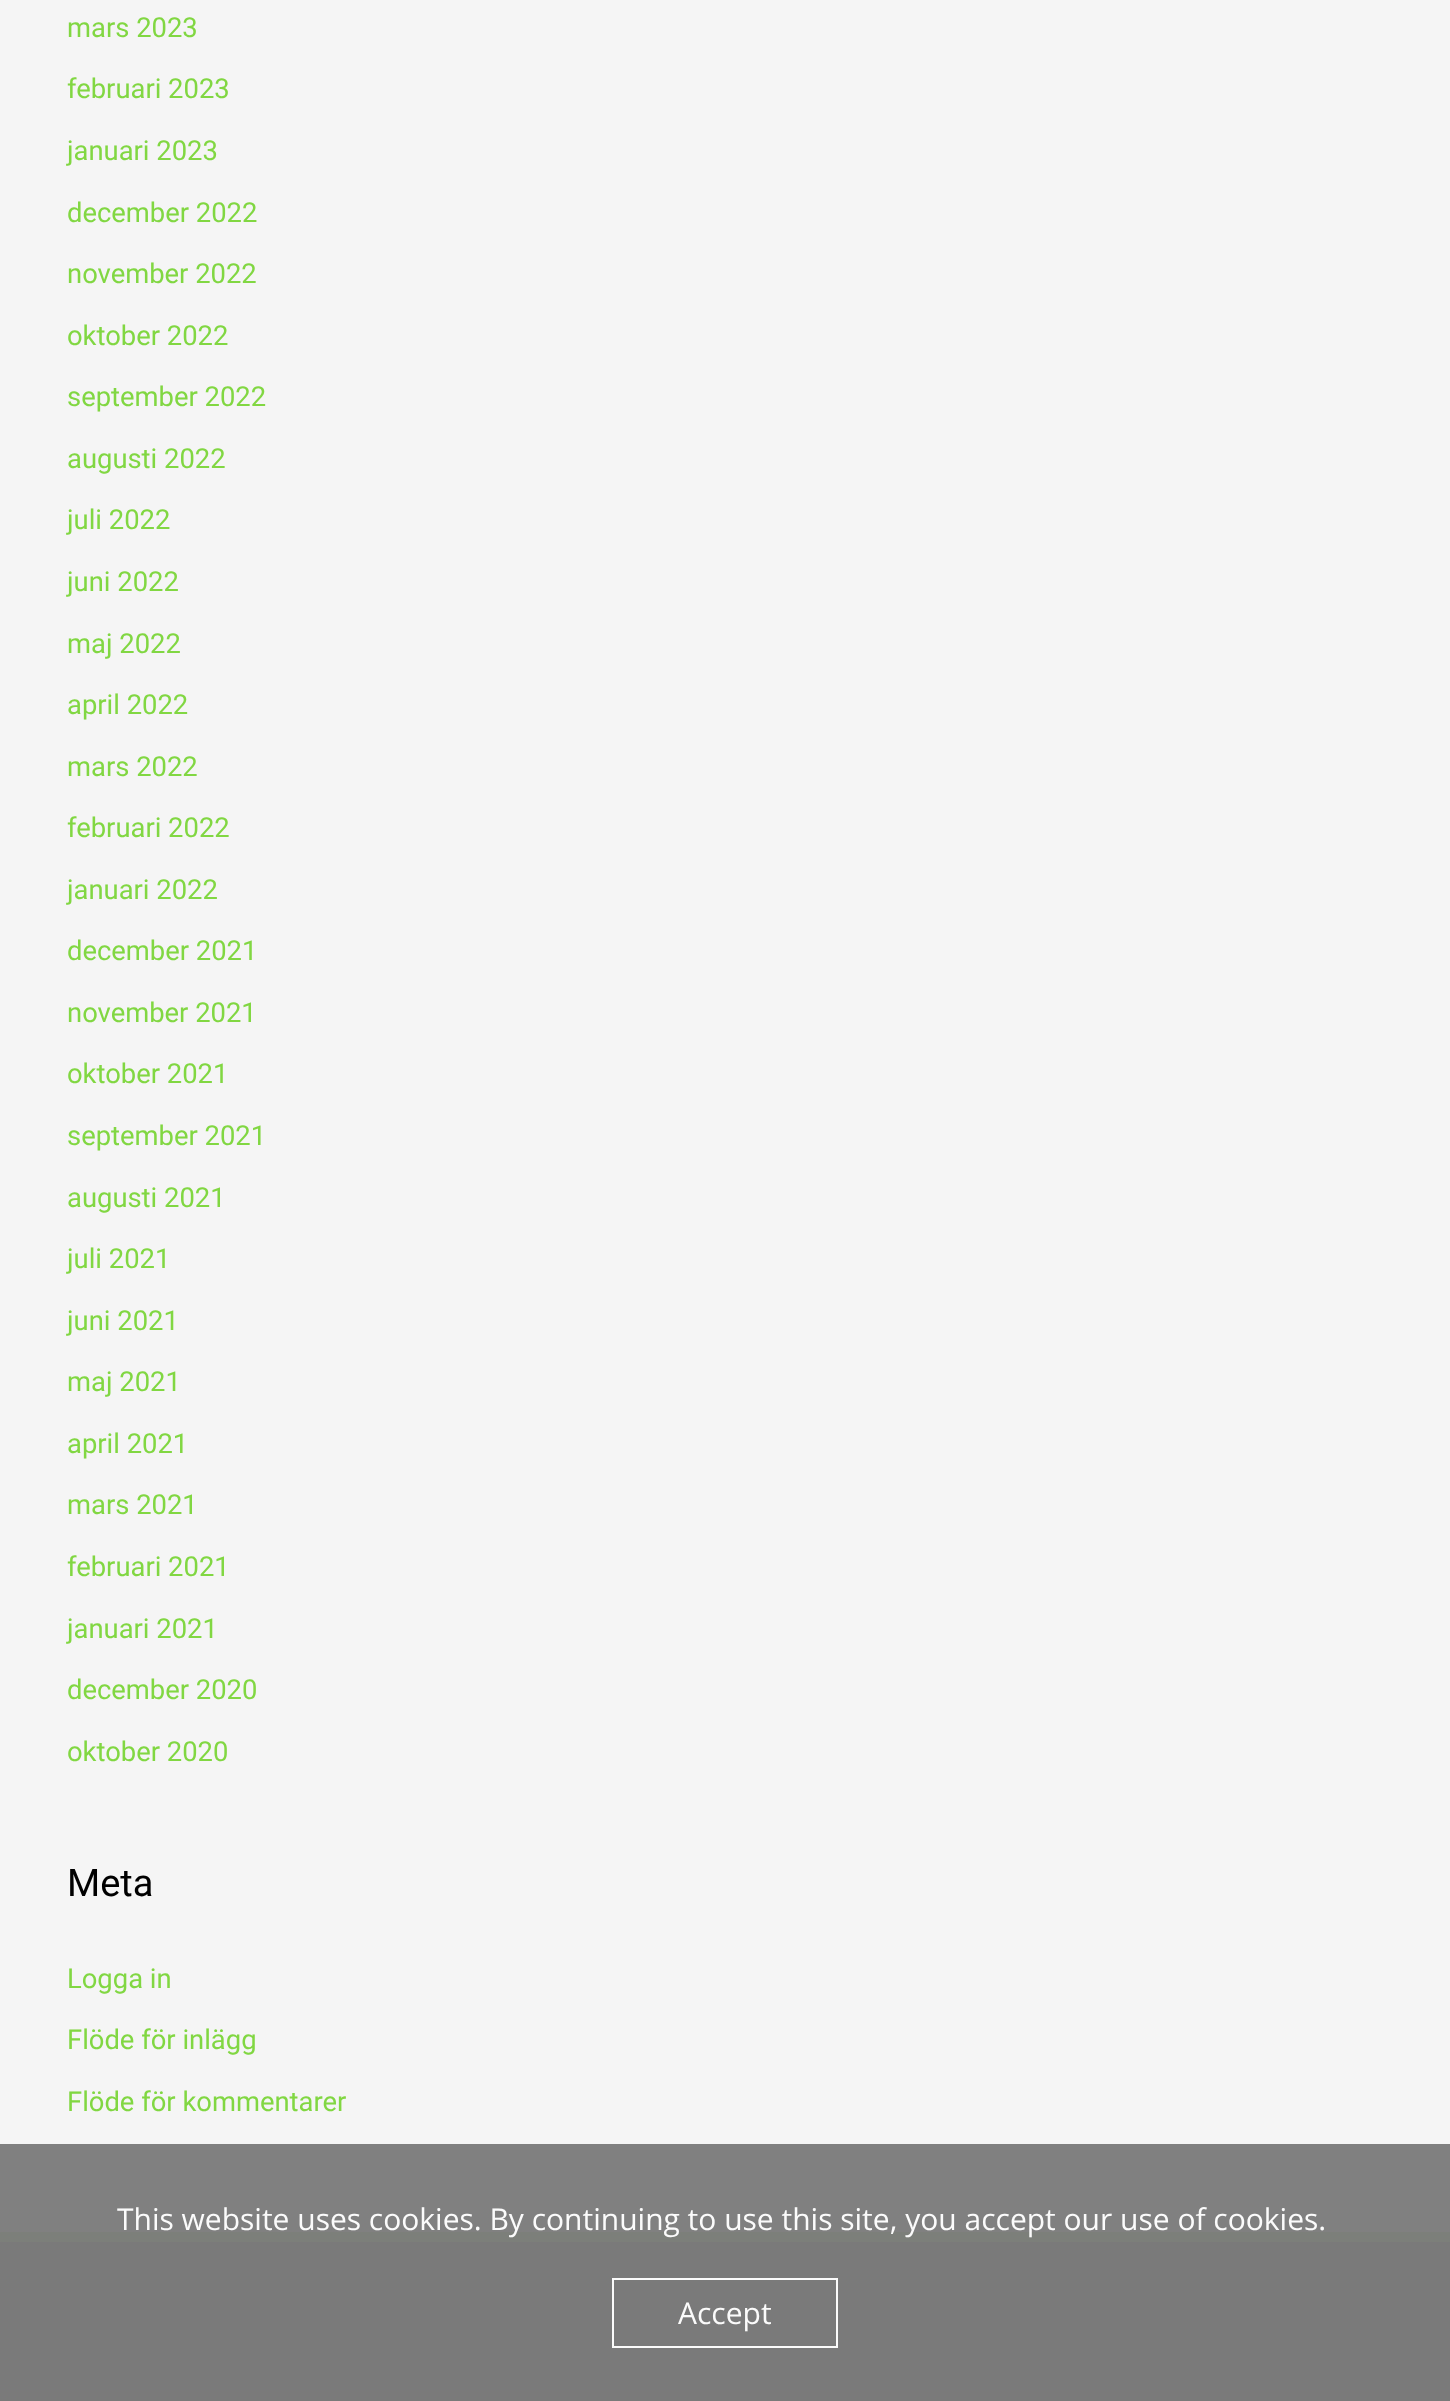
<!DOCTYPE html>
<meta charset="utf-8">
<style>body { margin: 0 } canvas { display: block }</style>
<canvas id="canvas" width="1450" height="2401"></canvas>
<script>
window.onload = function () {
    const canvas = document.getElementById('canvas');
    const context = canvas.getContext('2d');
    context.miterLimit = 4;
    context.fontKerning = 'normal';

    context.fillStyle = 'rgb(245, 245, 245)';
    context.fillRect(0, 0, 1450, 2401);
    context.fillStyle = 'rgb(128, 128, 128)';
    context.fillRect(0, 2144, 1450, 88);
    context.fillStyle = 'rgb(124, 127, 122)';
    context.fillRect(0, 2232, 1450, 10);
    context.fillStyle = 'rgb(122, 122, 122)';
    context.fillRect(0, 2242, 1450, 159);
    context.strokeStyle = 'rgba(255, 255, 255, 0.97)';
    context.lineWidth = 2;
    context.strokeRect(613, 2279, 224, 68);
    context.font = '27.4px Roboto';
    context.fillStyle = 'rgb(129, 215, 66)';
    context.fillText('mars 2023', 67, 37);
    context.fillText('februari 2023', 67, 98);
    context.fillText('januari 2023', 67, 160);
    context.fillText('december 2022', 67, 222);
    context.fillText('november 2022', 67, 283);
    context.fillText('oktober 2022', 67, 345);
    context.fillText('september 2022', 67, 406);
    context.fillText('augusti 2022', 67, 468);
    context.fillText('juli 2022', 67, 529);
    context.fillText('juni 2022', 67, 591);
    context.fillText('maj 2022', 67, 653);
    context.fillText('april 2022', 67, 714);
    context.fillText('mars 2022', 67, 776);
    context.fillText('februari 2022', 67, 837);
    context.fillText('januari 2022', 67, 899);
    context.fillText('december 2021', 67, 960);
    context.fillText('november 2021', 67, 1022);
    context.fillText('oktober 2021', 67, 1083);
    context.fillText('september 2021', 67, 1145);
    context.fillText('augusti 2021', 67, 1207);
    context.fillText('juli 2021', 67, 1268);
    context.fillText('juni 2021', 67, 1330);
    context.fillText('maj 2021', 67, 1391);
    context.fillText('april 2021', 67, 1453);
    context.fillText('mars 2021', 67, 1514);
    context.fillText('februari 2021', 67, 1576);
    context.fillText('januari 2021', 67, 1638);
    context.fillText('december 2020', 67, 1699);
    context.fillText('oktober 2020', 67, 1761);
    context.font = '38px Roboto';
    context.fillStyle = 'rgb(0, 0, 0)';
    context.fillText('Meta', 67, 1896);
    context.font = '27.4px Roboto';
    context.fillStyle = 'rgb(129, 215, 66)';
    context.fillText('Logga in', 67, 1988);
    context.fillText('Flöde för inlägg', 67, 2049);
    context.fillText('Flöde för kommentarer', 67, 2111);
    context.font = '30px Open Sans';
    context.fillStyle = 'rgb(251, 251, 251)';
    context.fillText('This website uses cookies. By continuing to use this site, you accept our use of cookies.', 117, 2230);
    context.fillText('Accept', 678, 2324);
};
</script>
